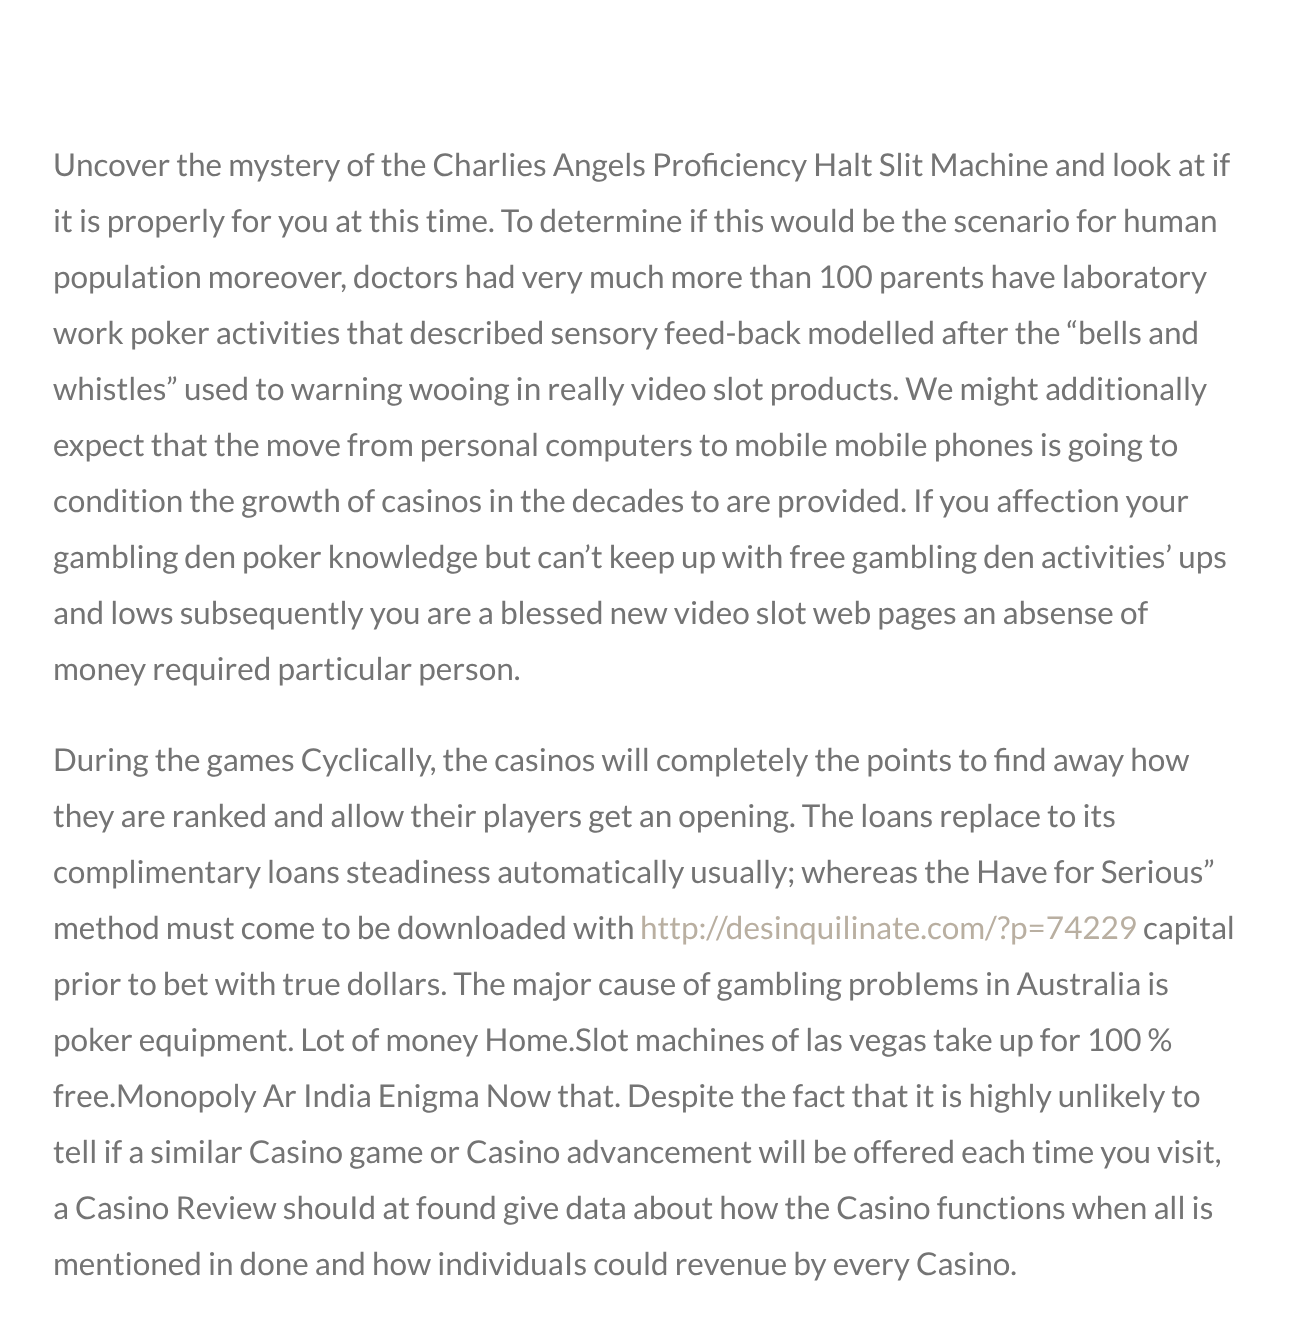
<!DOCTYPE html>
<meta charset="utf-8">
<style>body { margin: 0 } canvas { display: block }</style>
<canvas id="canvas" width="1289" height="1336"></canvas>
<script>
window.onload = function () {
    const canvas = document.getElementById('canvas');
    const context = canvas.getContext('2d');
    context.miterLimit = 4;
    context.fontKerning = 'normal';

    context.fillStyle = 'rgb(255, 255, 255)';
    context.fillRect(0, 0, 1289, 1336);
    context.font = '31.5px Lato';
    context.fillStyle = 'rgb(116, 116, 116)';
    context.fillText('Uncover the mystery of the Charlies Angels Proficiency Halt Slit Machine and look at if', 53, 176);
    context.fillText('it is properly for you at this time. To determine if this would be the scenario for human', 53, 232);
    context.fillText('population moreover, doctors had very much more than 100 parents have laboratory', 53, 288);
    context.fillText('work poker activities that described sensory feed-back modelled after the “bells and', 53, 344);
    context.fillText('whistles” used to warning wooing in really video slot products. We might additionally', 53, 400);
    context.fillText('expect that the move from personal computers to mobile mobile phones is going to', 53, 456);
    context.fillText('condition the growth of casinos in the decades to are provided. If you affection your', 53, 512);
    context.fillText('gambling den poker knowledge but can’t keep up with free gambling den activities’ ups', 53, 568);
    context.fillText('and lows subsequently you are a blessed new video slot web pages an absense of', 53, 624);
    context.fillText('money required particular person.', 53, 680);
    context.fillText('During the games Cyclically, the casinos will completely the points to find away how', 53, 771);
    context.fillText('they are ranked and allow their players get an opening. The loans replace to its', 53, 827);
    context.fillText('complimentary loans steadiness automatically usually; whereas the Have for Serious”', 53, 883);
    context.fillText('method must come to be downloaded with', 53, 939);
    context.fillStyle = 'rgb(185, 175, 161)';
    context.fillText('http://desinquilinate.com/?p=74229', 640, 939);
    context.fillStyle = 'rgb(116, 116, 116)';
    context.fillText('capital', 1143, 939);
    context.fillText('prior to bet with true dollars. The major cause of gambling probIems in Australia is', 53, 995);
    context.fillText('poker equipment. Lot of money Home.Slot machines of las vegas take up for 100 %', 53, 1051);
    context.fillText('free.Monopoly Ar India Enigma Now that. Despite the fact that it is highly unlikely to', 53, 1107);
    context.fillText('tell if a similar Casino game or Casino advancement will be offered each time you visit,', 53, 1163);
    context.fillText('a Casino Review shouId at found give data about how the Casino functions when all is', 53, 1219);
    context.fillText('mentioned in done and how individuaIs could revenue by every Casino.', 53, 1275);
};
</script>
